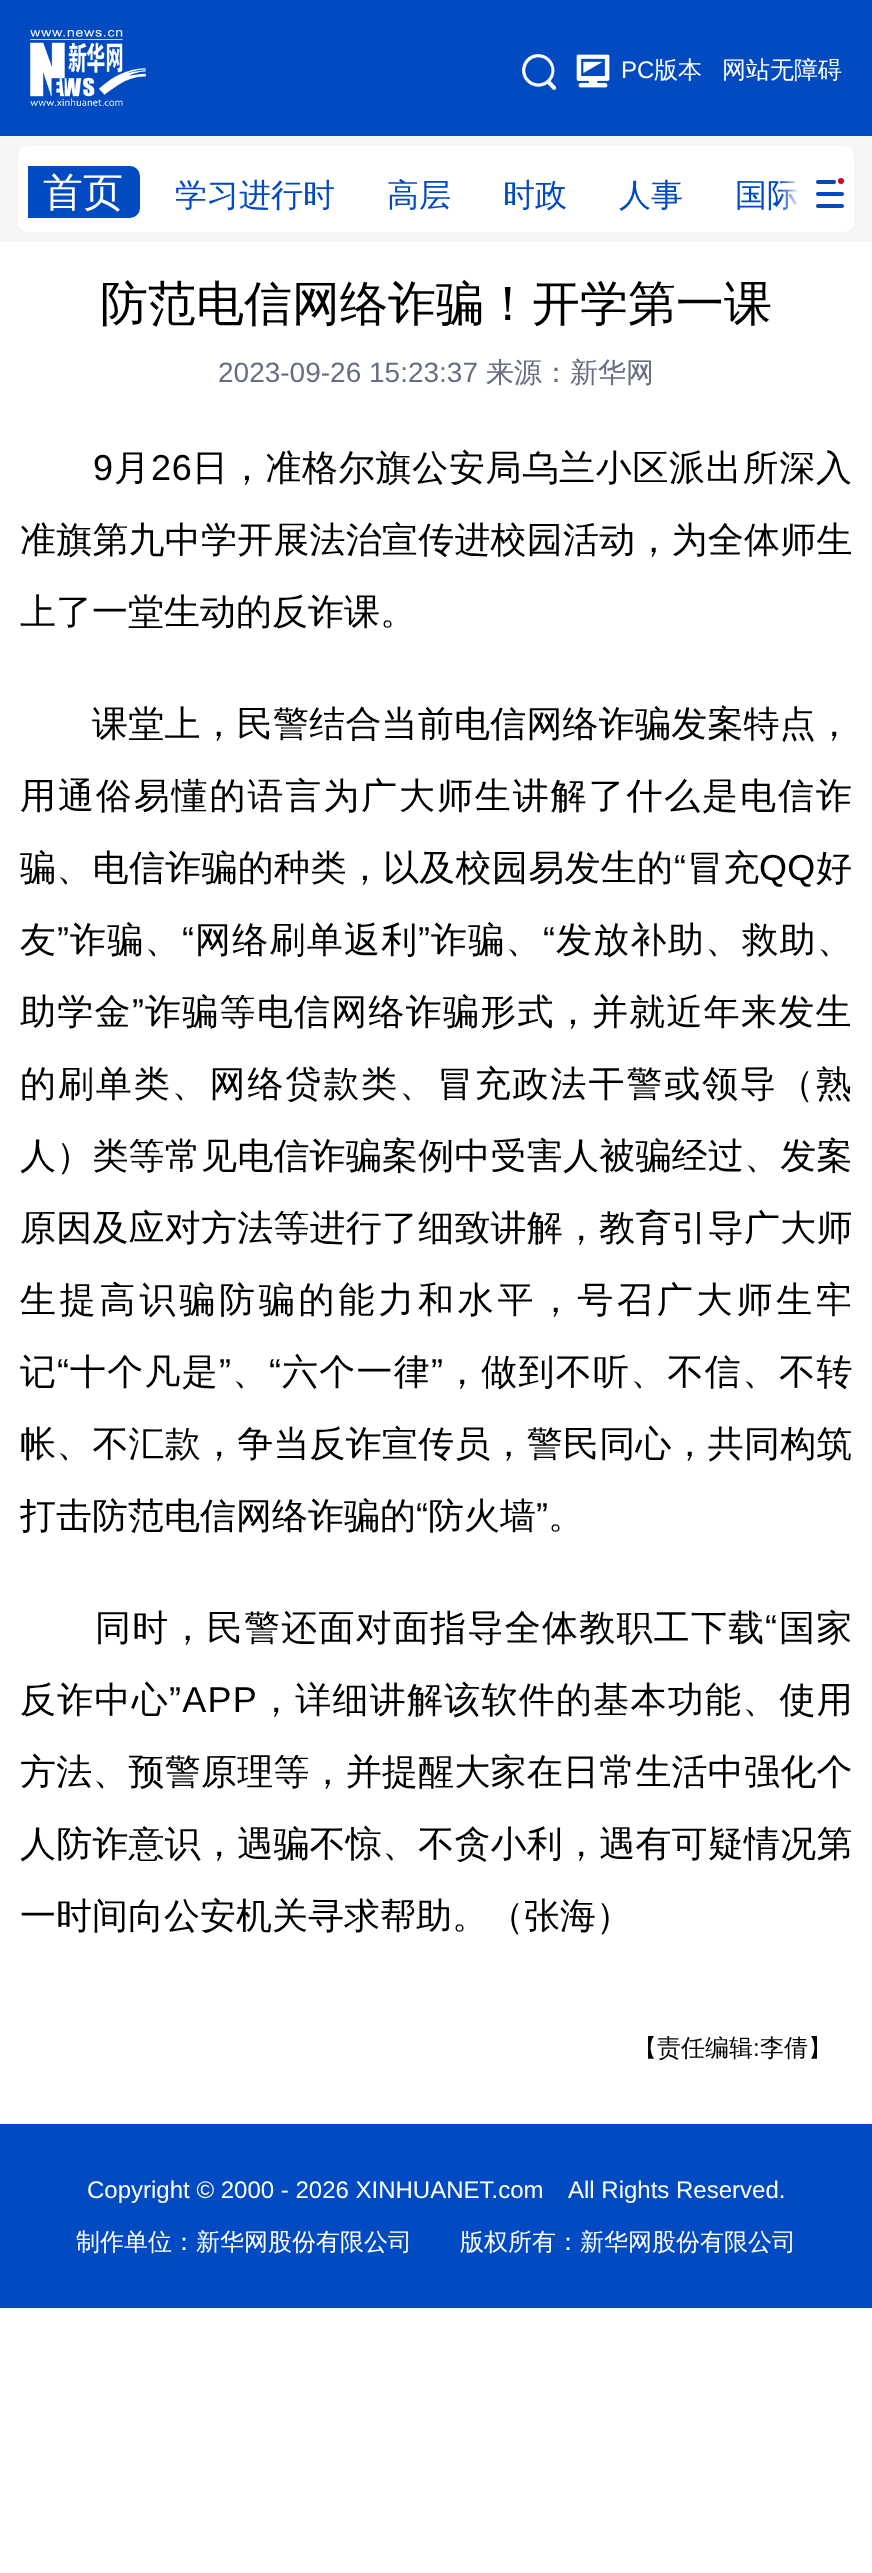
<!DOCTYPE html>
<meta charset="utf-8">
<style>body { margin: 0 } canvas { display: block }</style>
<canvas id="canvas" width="872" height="2573"></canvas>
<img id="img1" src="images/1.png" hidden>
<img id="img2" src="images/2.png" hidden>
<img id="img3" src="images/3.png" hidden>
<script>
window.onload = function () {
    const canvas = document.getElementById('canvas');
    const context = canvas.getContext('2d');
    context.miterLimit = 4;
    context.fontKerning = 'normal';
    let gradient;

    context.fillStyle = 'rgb(255, 255, 255)';
    context.fillRect(0, 0, 872, 2573);
    context.fillStyle = 'rgb(2, 74, 194)';
    context.fillRect(0, 0, 872, 136);
    context.drawImage(document.getElementById('img1'), 30, 30, 116, 76);
    context.drawImage(document.getElementById('img2'), 522, 54, 34, 36);
    context.drawImage(document.getElementById('img3'), 576, 54, 34, 34);
    context.fillStyle = 'rgb(245, 245, 245)';
    context.fillRect(0, 136, 872, 106);
    context.fillStyle = 'rgb(255, 255, 255)';
    context.beginPath();
    context.roundRect(18, 146, 836, 86, 10);
    context.fill();
    context.fillStyle = 'rgb(2, 74, 194)';
    context.beginPath();
    context.roundRect(28, 166, 112, 52, [0, 10, 10, 0]);
    context.fill();
    context.beginPath();
    context.roundRect(816, 180, 20, 4, 2);
    context.fill();
    context.fillStyle = 'rgb(229, 0, 32)';
    context.beginPath();
    context.arc(841, 181, 3, 0, 2 * Math.PI);
    context.fill();
    context.fillStyle = 'rgb(2, 74, 194)';
    context.beginPath();
    context.roundRect(816, 192, 28, 4, 2);
    context.fill();
    context.beginPath();
    context.roundRect(816, 204, 28, 4, 2);
    context.fill();
    context.fillRect(0, 2124, 872, 184);
    context.font = '24px Liberation Sans';
    context.fillStyle = 'rgb(255, 255, 255)';
    context.fillText('PC', 621, 78);
    context.font = '500 24px WenQuanYi Zen Hei';
    context.fillText('版本', 654, 78);
    context.fillText('网站无障碍', 722, 78);
    context.font = '500 40px WenQuanYi Zen Hei';
    context.fillText('首页', 43, 206);
    context.font = '500 32px WenQuanYi Zen Hei';
    context.fillStyle = 'rgb(2, 74, 194)';
    context.fillText('学习进行时', 175, 206);
    context.fillText('高层', 387, 206);
    context.fillText('时政', 503, 206);
    context.fillText('人事', 619, 206);
    context.fillText('国际', 735, 206);
    gradient = context.createLinearGradient(780, 194, 800, 194);
    gradient.addColorStop(0, 'rgba(255, 255, 255, 0)');
    gradient.addColorStop(1, 'rgb(255, 255, 255)');
    context.fillStyle = gradient;
    context.fillRect(780, 181, 19, 30);
    context.font = '500 48px WenQuanYi Zen Hei';
    context.fillStyle = 'rgb(0, 0, 0)';
    context.fillText('防范电信网络诈骗！开学第一课', 100, 320);
    context.font = '28px Liberation Sans';
    context.fillStyle = 'rgb(100, 109, 129)';
    context.fillText('2023-09-26 15:23:37', 218, 382);
    context.font = '500 28px WenQuanYi Zen Hei';
    context.fillText('来源：新华网', 486, 382);
    context.letterSpacing = '0.7px';
    context.font = '36px Liberation Sans';
    context.fillStyle = 'rgb(0, 0, 0)';
    context.fillText('9', 93, 480);
    context.font = '500 36px WenQuanYi Zen Hei';
    context.fillText('月', 114, 480);
    context.font = '36px Liberation Sans';
    context.fillText('26', 151, 480);
    context.font = '500 36px WenQuanYi Zen Hei';
    context.fillText('日，准格尔旗公安局乌兰小区派出所深入', 192, 480);
    context.letterSpacing = '0.2px';
    context.fillText('准旗第九中学开展法治宣传进校园活动，为全体师生', 20, 552);
    context.letterSpacing = '0px';
    context.fillText('上了一堂生动的反诈课。', 20, 624);
    context.letterSpacing = '0.2px';
    context.fillText('课堂上，民警结合当前电信网络诈骗发案特点，', 92, 736);
    context.letterSpacing = '1.9px';
    context.fillText('用通俗易懂的语言为广大师生讲解了什么是电信诈', 20, 808);
    context.letterSpacing = '0.3px';
    context.fillText('骗、电信诈骗的种类，以及校园易发生的', 20, 880);
    context.font = '36px Liberation Sans';
    context.fillText('“', 674, 880);
    context.font = '500 36px WenQuanYi Zen Hei';
    context.fillText('冒充', 687, 880);
    context.font = '36px Liberation Sans';
    context.fillText('QQ', 759, 880);
    context.font = '500 36px WenQuanYi Zen Hei';
    context.fillText('好', 816, 880);
    context.letterSpacing = '1.25px';
    context.fillText('友', 20, 952);
    context.font = '36px Liberation Sans';
    context.fillText('”', 57, 952);
    context.font = '500 36px WenQuanYi Zen Hei';
    context.fillText('诈骗、', 70, 952);
    context.font = '36px Liberation Sans';
    context.fillText('“', 182, 952);
    context.font = '500 36px WenQuanYi Zen Hei';
    context.fillText('网络刷单返利', 195, 952);
    context.font = '36px Liberation Sans';
    context.fillText('”', 418, 952);
    context.font = '500 36px WenQuanYi Zen Hei';
    context.fillText('诈骗、', 431, 952);
    context.font = '36px Liberation Sans';
    context.fillText('“', 543, 952);
    context.font = '500 36px WenQuanYi Zen Hei';
    context.fillText('发放补助、救助、', 556, 952);
    context.fillText('助学金', 20, 1024);
    context.font = '36px Liberation Sans';
    context.fillText('”', 132, 1024);
    context.font = '500 36px WenQuanYi Zen Hei';
    context.fillText('诈骗等电信网络诈骗形式，并就近年来发生', 145, 1024);
    context.letterSpacing = '1.9px';
    context.fillText('的刷单类、网络贷款类、冒充政法干警或领导（熟', 20, 1096);
    context.letterSpacing = '0.2px';
    context.fillText('人）类等常见电信诈骗案例中受害人被骗经过、发案', 20, 1168);
    context.fillText('原因及应对方法等进行了细致讲解，教育引导广大师', 20, 1240);
    context.letterSpacing = '3.8px';
    context.fillText('生提高识骗防骗的能力和水平，号召广大师生牢', 20, 1312);
    context.letterSpacing = '1.25px';
    context.fillText('记', 20, 1384);
    context.font = '36px Liberation Sans';
    context.fillText('“', 57, 1384);
    context.font = '500 36px WenQuanYi Zen Hei';
    context.fillText('十个凡是', 70, 1384);
    context.font = '36px Liberation Sans';
    context.fillText('”', 219, 1384);
    context.fillText('“', 269, 1384);
    context.font = '500 36px WenQuanYi Zen Hei';
    context.fillText('六个一律', 282, 1384);
    context.font = '36px Liberation Sans';
    context.fillText('”', 431, 1384);
    context.font = '500 36px WenQuanYi Zen Hei';
    context.fillText('，做到不听、不信、不转', 444, 1384);
    context.fillText('、', 232, 1384);
    context.letterSpacing = '0.2px';
    context.fillText('帐、不汇款，争当反诈宣传员，警民同心，共同构筑', 20, 1456);
    context.letterSpacing = '0px';
    context.fillText('打击防范电信网络诈骗的', 20, 1528);
    context.font = '36px Liberation Sans';
    context.fillText('“', 416, 1528);
    context.font = '500 36px WenQuanYi Zen Hei';
    context.fillText('防火墙', 428, 1528);
    context.font = '36px Liberation Sans';
    context.fillText('”', 536, 1528);
    context.font = '500 36px WenQuanYi Zen Hei';
    context.fillText('。', 548, 1528);
    context.letterSpacing = '1.25px';
    context.fillText('同时，民警还面对面指导全体教职工下载', 95, 1640);
    context.font = '36px Liberation Sans';
    context.fillText('“', 765, 1640);
    context.font = '500 36px WenQuanYi Zen Hei';
    context.fillText('国家', 779, 1640);
    context.fillText('反诈中心', 20, 1712);
    context.font = '36px Liberation Sans';
    context.fillText('”APP', 169, 1712);
    context.font = '500 36px WenQuanYi Zen Hei';
    context.fillText('，详细讲解该软件的基本功能、使用', 258, 1712);
    context.letterSpacing = '0.2px';
    context.fillText('方法、预警原理等，并提醒大家在日常生活中强化个', 20, 1784);
    context.fillText('人防诈意识，遇骗不惊、不贪小利，遇有可疑情况第', 20, 1856);
    context.letterSpacing = '0px';
    context.fillText('一时间向公安机关寻求帮助。（张海）', 20, 1928);
    context.font = '500 24px WenQuanYi Zen Hei';
    context.fillText('【责任编辑', 633, 2056);
    context.font = '24px Liberation Sans';
    context.fillText(':', 753, 2056);
    context.font = '500 24px WenQuanYi Zen Hei';
    context.fillText('李倩】', 760, 2056);
    context.font = '24px Liberation Sans';
    context.fillStyle = 'rgb(255, 255, 255)';
    context.fillText('Copyright © 2000 - 2026 XINHUANET.com', 87, 2198);
    context.fillText('All Rights Reserved.', 568, 2198);
    context.font = '500 24px WenQuanYi Zen Hei';
    context.fillText('制作单位：新华网股份有限公司　　版权所有：新华网股份有限公司', 76, 2250);
};
</script>
